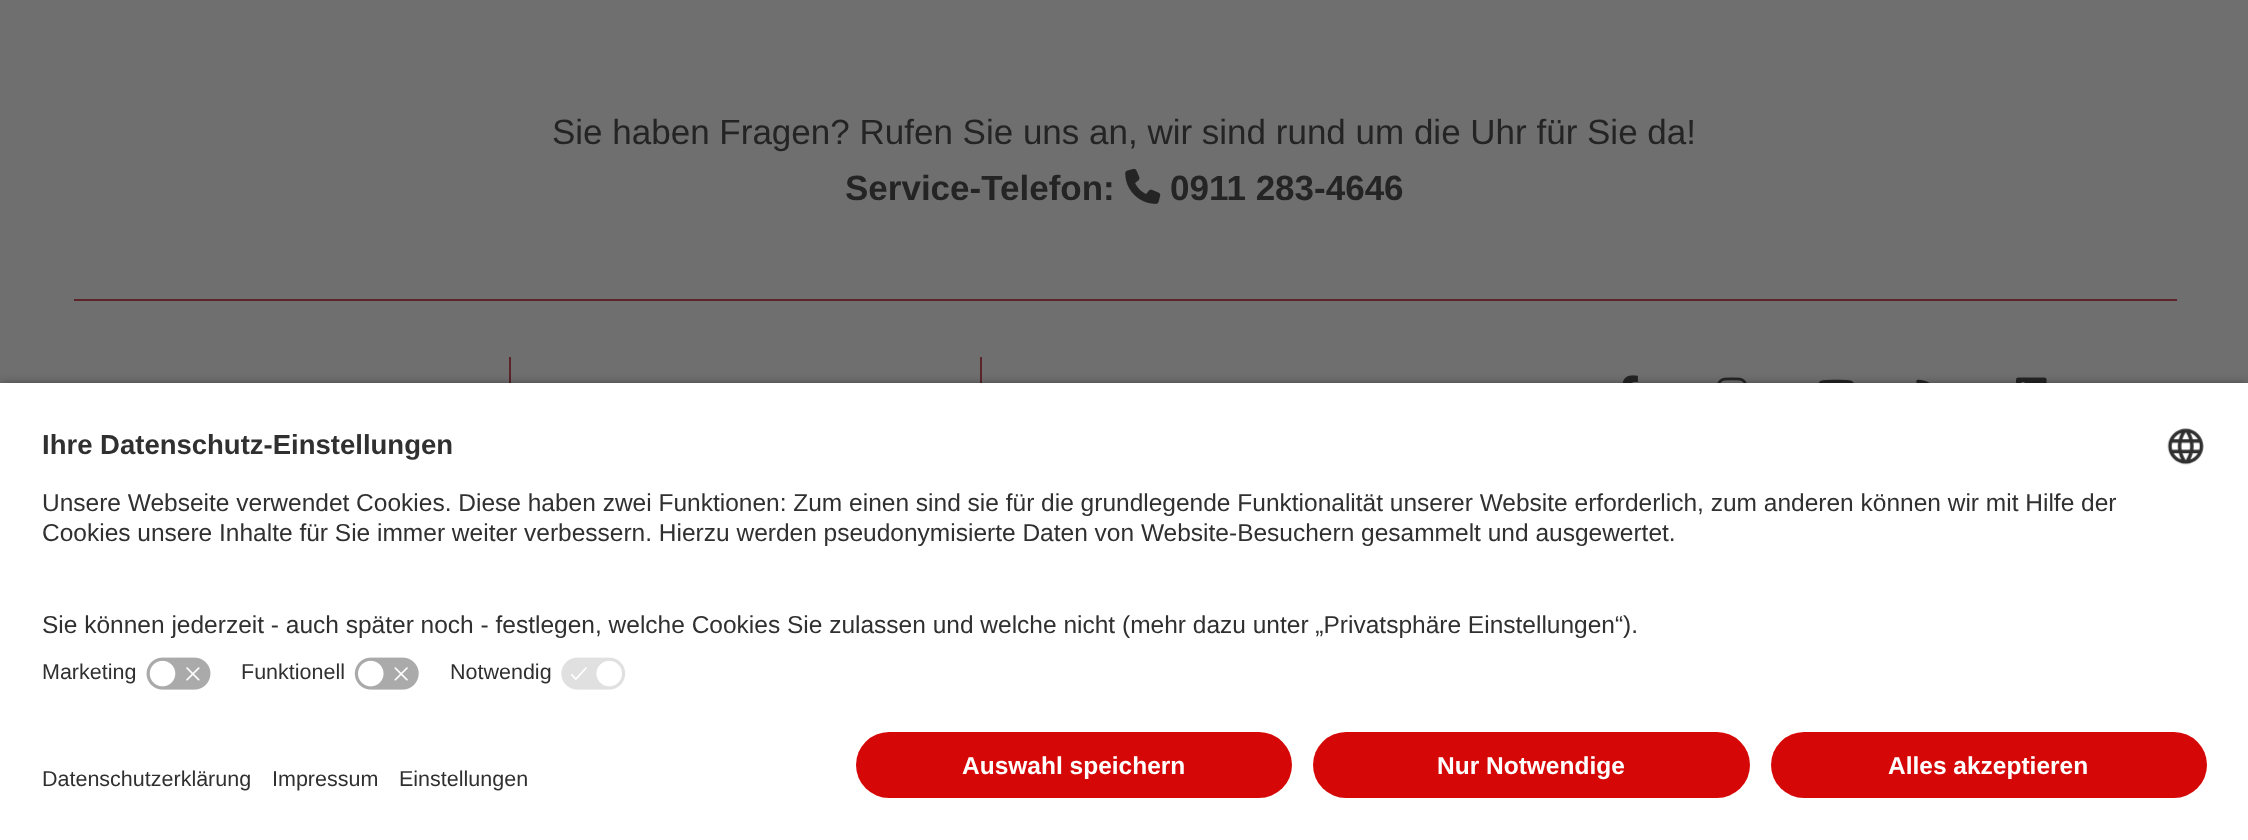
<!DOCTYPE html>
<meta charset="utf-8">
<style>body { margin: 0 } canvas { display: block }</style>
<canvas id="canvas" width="2248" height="840"></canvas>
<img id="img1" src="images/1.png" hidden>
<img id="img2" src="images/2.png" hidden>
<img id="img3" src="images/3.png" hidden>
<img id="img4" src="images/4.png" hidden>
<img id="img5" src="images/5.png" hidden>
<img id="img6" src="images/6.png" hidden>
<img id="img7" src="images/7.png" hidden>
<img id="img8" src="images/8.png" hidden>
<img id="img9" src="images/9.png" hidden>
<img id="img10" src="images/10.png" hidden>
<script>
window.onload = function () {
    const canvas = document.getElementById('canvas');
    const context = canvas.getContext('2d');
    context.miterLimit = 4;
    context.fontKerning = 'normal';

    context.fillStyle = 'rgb(111, 111, 111)';
    context.fillRect(0, 0, 2248, 840);
    context.drawImage(document.getElementById('img1'), 1125, 168, 36, 36);
    context.fillStyle = 'rgb(91, 36, 41)';
    context.fillRect(74, 299, 2103, 2);
    context.fillRect(509, 357, 2, 26);
    context.fillRect(980, 357, 2, 26);
    context.drawImage(document.getElementById('img2'), 1622, 375, 16, 8);
    context.drawImage(document.getElementById('img3'), 1717, 377, 30, 6);
    context.drawImage(document.getElementById('img4'), 1818, 379, 36, 4);
    context.drawImage(document.getElementById('img5'), 1916, 379, 14, 4);
    context.drawImage(document.getElementById('img6'), 2016, 377, 31, 6);
    context.fillStyle = 'rgba(0, 0, 0, 0.8)';
    context.filter = 'blur(6px)';
    context.beginPath();
    context.rect(0, 387, 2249, 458);
    context.fill();
    context.filter = 'none';
    context.fillStyle = 'rgb(255, 255, 255)';
    context.fillRect(0, 383, 2248, 457);
    context.drawImage(document.getElementById('img7'), 2167, 428, 37, 37);
    context.drawImage(document.getElementById('img8'), 146, 657, 65, 33);
    context.drawImage(document.getElementById('img9'), 354, 657, 65, 33);
    context.drawImage(document.getElementById('img10'), 561, 657, 65, 33);
    context.fillStyle = 'rgb(214, 7, 7)';
    context.beginPath();
    context.roundRect(856, 732, 436, 66, 33);
    context.fill();
    context.beginPath();
    context.roundRect(1313, 732, 437, 66, 33);
    context.fill();
    context.beginPath();
    context.roundRect(1771, 732, 436, 66, 33);
    context.fill();
    context.font = '35px Liberation Sans';
    context.fillStyle = 'rgb(36, 36, 36)';
    context.fillText('Sie haben Fragen? Rufen Sie uns an, wir sind rund um die Uhr für Sie da!', 552, 144);
    context.font = 'bold 35px Liberation Sans';
    context.fillText('Service-Telefon:', 845, 200);
    context.fillText('0911 283-4646', 1170, 200);
    context.font = 'bold 27.5px Liberation Sans';
    context.fillStyle = 'rgb(48, 48, 48)';
    context.fillText('Ihre Datenschutz-Einstellungen', 42, 454);
    context.font = '24.5px Liberation Sans';
    context.fillText('Unsere Webseite verwendet Cookies. Diese haben zwei Funktionen: Zum einen sind sie für die grundlegende Funktionalität unserer Website erforderlich, zum anderen können wir mit Hilfe der', 42, 511);
    context.fillText('Cookies unsere Inhalte für Sie immer weiter verbessern. Hierzu werden pseudonymisierte Daten von Website-Besuchern gesammelt und ausgewertet.', 42, 541);
    context.fillText('Sie können jederzeit - auch später noch - festlegen, welche Cookies Sie zulassen und welche nicht (mehr dazu unter „Privatsphäre Einstellungen“).', 42, 633);
    context.font = '21.5px Liberation Sans';
    context.fillText('Marketing', 42, 679);
    context.fillText('Funktionell', 241, 679);
    context.fillText('Notwendig', 450, 679);
    context.fillText('Datenschutzerklärung', 42, 786);
    context.fillText('Impressum', 272, 786);
    context.fillText('Einstellungen', 399, 786);
    context.font = 'bold 24.5px Liberation Sans';
    context.fillStyle = 'rgb(255, 255, 255)';
    context.fillText('Auswahl speichern', 962, 774);
    context.fillText('Nur Notwendige', 1437, 774);
    context.fillText('Alles akzeptieren', 1888, 774);
};
</script>
